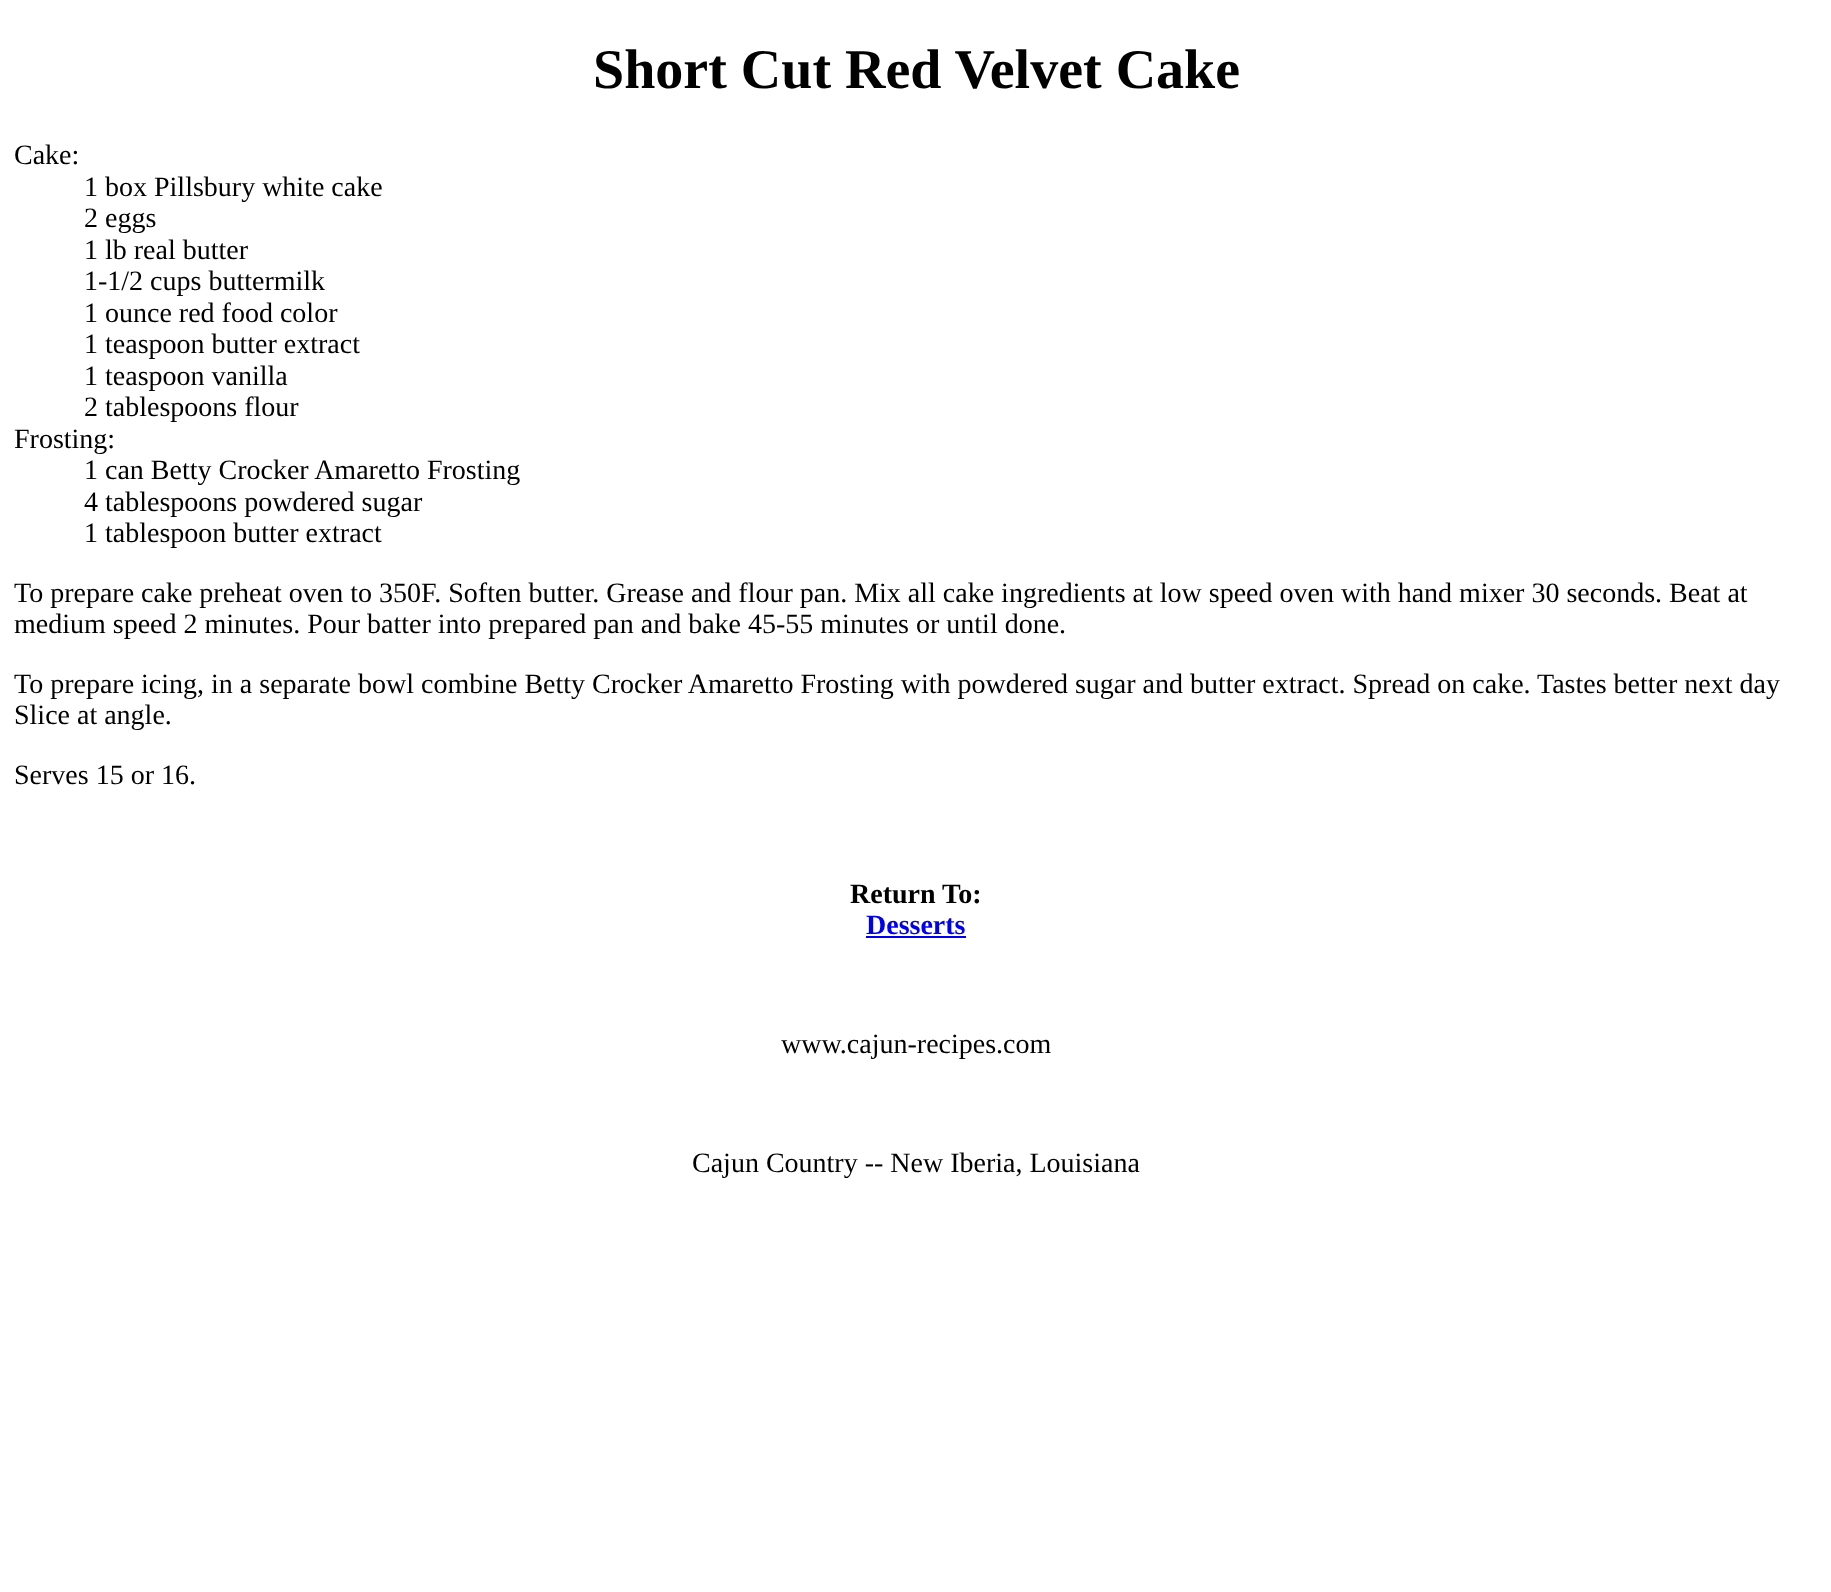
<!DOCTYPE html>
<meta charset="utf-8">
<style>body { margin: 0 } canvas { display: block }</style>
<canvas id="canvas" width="1831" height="1592"></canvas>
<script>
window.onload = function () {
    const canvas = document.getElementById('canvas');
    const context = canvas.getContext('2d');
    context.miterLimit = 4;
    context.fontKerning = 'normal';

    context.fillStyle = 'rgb(255, 255, 255)';
    context.fillRect(0, 0, 1831, 1592);
    context.fillStyle = 'rgb(0, 0, 238)';
    context.fillRect(866, 936, 100, 2);
    context.font = 'bold 56px Liberation Serif';
    context.fillStyle = 'rgb(0, 0, 0)';
    context.fillText('Short Cut Red Velvet Cake', 593, 88);
    context.font = '28px Liberation Serif';
    context.fillText('Cake:', 14, 164);
    context.fillText('1 box Pillsbury white cake', 84, 196);
    context.fillText('2 eggs', 84, 227);
    context.fillText('1 lb real butter', 84, 259);
    context.fillText('1-1/2 cups buttermilk', 84, 290);
    context.fillText('1 ounce red food color', 84, 322);
    context.fillText('1 teaspoon butter extract', 84, 353);
    context.fillText('1 teaspoon vanilla', 84, 385);
    context.fillText('2 tablespoons flour', 84, 416);
    context.fillText('Frosting:', 14, 448);
    context.fillText('1 can Betty Crocker Amaretto Frosting', 84, 479);
    context.fillText('4 tablespoons powdered sugar', 84, 511);
    context.fillText('1 tablespoon butter extract', 84, 542);
    context.fillText('To prepare cake preheat oven to 350F. Soften butter. Grease and flour pan. Mix all cake ingredients at low speed oven with hand mixer 30 seconds. Beat at', 14, 602);
    context.fillText('medium speed 2 minutes. Pour batter into prepared pan and bake 45-55 minutes or until done.', 14, 633);
    context.fillText('To prepare icing, in a separate bowl combine Betty Crocker Amaretto Frosting with powdered sugar and butter extract. Spread on cake. Tastes better next day', 14, 693);
    context.fillText('Slice at angle.', 14, 724);
    context.fillText('Serves 15 or 16.', 14, 784);
    context.font = 'bold 28px Liberation Serif';
    context.fillText('Return To:', 850, 903);
    context.fillStyle = 'rgb(0, 0, 238)';
    context.fillText('Desserts', 866, 934);
    context.font = '28px Liberation Serif';
    context.fillStyle = 'rgb(0, 0, 0)';
    context.fillText('www.cajun-recipes.com', 781, 1053);
    context.fillText('Cajun Country -- New Iberia, Louisiana', 692, 1172);
};
</script>
